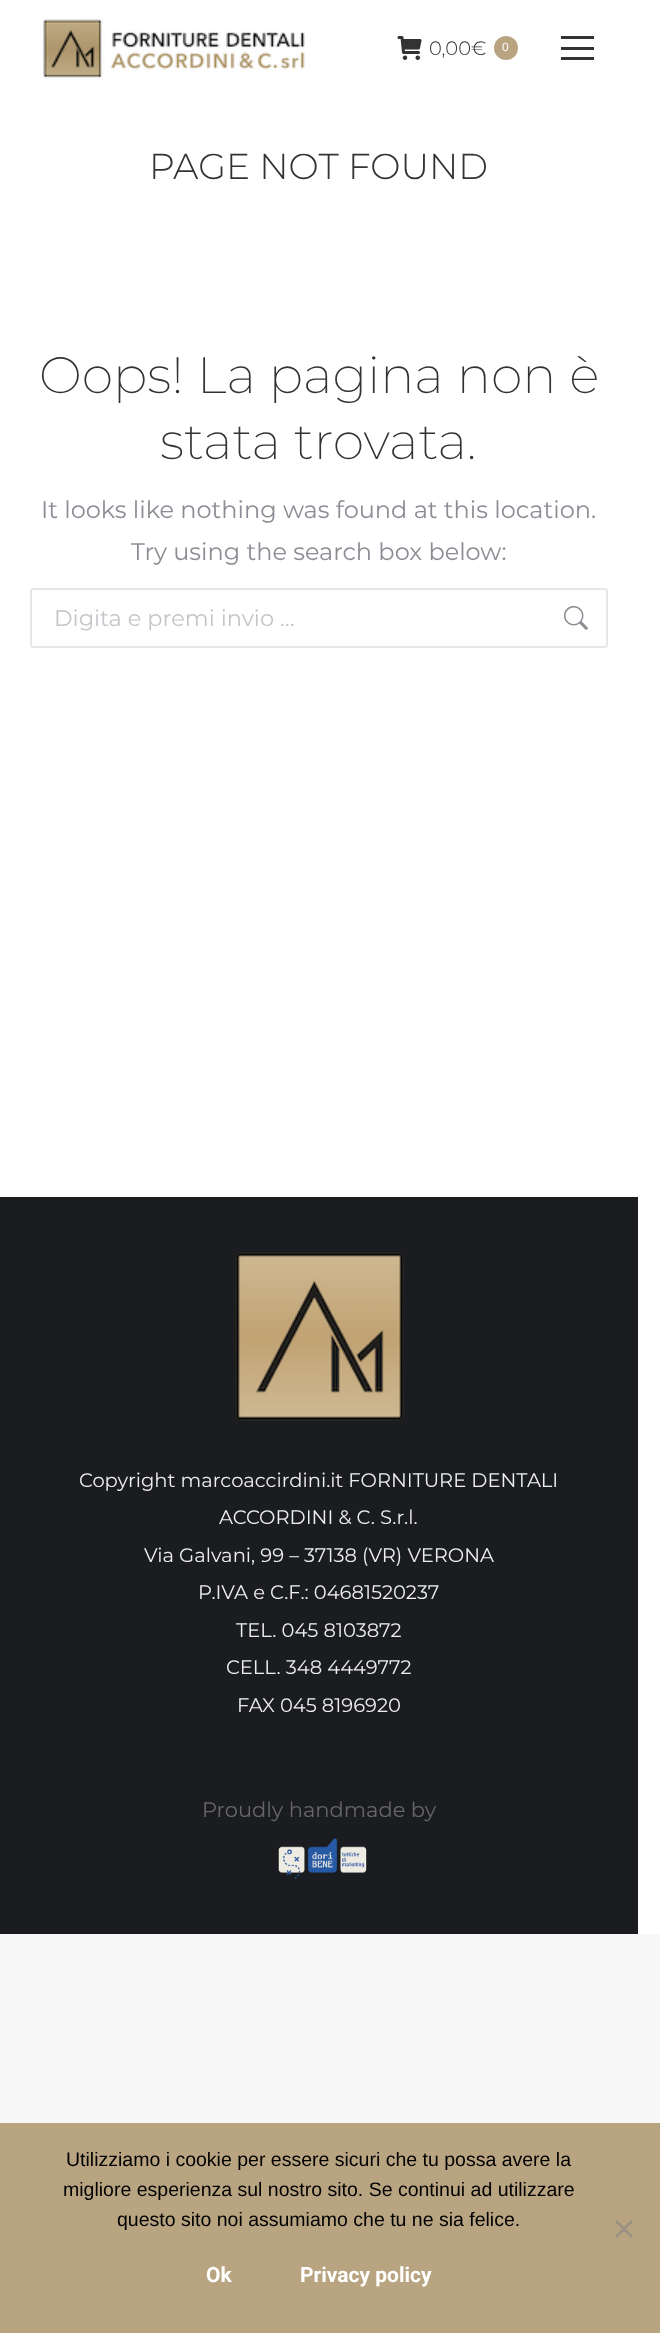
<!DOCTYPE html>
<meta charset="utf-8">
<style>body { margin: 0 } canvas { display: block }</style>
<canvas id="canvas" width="660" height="2333"></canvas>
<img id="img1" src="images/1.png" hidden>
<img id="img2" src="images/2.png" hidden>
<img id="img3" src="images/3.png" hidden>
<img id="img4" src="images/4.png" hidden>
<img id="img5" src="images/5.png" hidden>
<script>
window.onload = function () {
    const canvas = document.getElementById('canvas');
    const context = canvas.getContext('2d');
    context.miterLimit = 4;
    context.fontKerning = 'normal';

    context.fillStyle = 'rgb(247, 247, 247)';
    context.fillRect(0, 0, 660, 2333);
    context.fillStyle = 'rgb(255, 255, 255)';
    context.fillRect(0, 0, 660, 1934);
    context.drawImage(document.getElementById('img1'), 43, 19, 262, 60);
    context.drawImage(document.getElementById('img2'), 397, 36, 25, 24);
    context.fillStyle = 'rgb(184, 164, 129)';
    context.beginPath();
    context.arc(506, 48, 12, 0, 2 * Math.PI);
    context.fill();
    context.fillStyle = 'rgb(51, 51, 51)';
    context.fillRect(561, 36, 33, 3);
    context.fillRect(561, 47, 33, 3);
    context.fillRect(561, 57, 33, 3);
    context.beginPath();
    context.roundRect(31, 589, 576, 58, 2);
    context.strokeStyle = 'rgb(231, 231, 231)';
    context.lineWidth = 2;
    context.stroke();
    context.drawImage(document.getElementById('img3'), 564, 606, 24, 24);
    context.fillStyle = 'rgb(26, 28, 32)';
    context.fillRect(0, 1197, 638, 737);
    context.drawImage(document.getElementById('img4'), 235, 1252, 169, 169);
    context.drawImage(document.getElementById('img5'), 278, 1838, 89, 41);
    context.fillStyle = 'rgb(184, 164, 129)';
    context.fillRect(0, 2123, 660, 210);
    context.fillStyle = 'rgb(156, 146, 129)';
    context.beginPath();
    context.moveTo(631, 2220);
    context.lineTo(633, 2222);
    context.lineTo(617, 2238);
    context.lineTo(615, 2236);
    context.closePath();
    context.fill();
    context.beginPath();
    context.moveTo(615, 2222);
    context.lineTo(617, 2220);
    context.lineTo(633, 2236);
    context.lineTo(631, 2238);
    context.closePath();
    context.fill();
    context.font = '300 19.5px Montserrat';
    context.fillStyle = 'rgb(51, 51, 51)';
    context.fillText('0,00€', 429, 55);
    context.font = '12px Liberation Sans';
    context.fillStyle = 'rgb(255, 255, 255)';
    context.fillText('0', 502, 51);
    context.font = '300 36px Montserrat';
    context.fillStyle = 'rgb(51, 51, 51)';
    context.fillText('PAGE NOT FOUND', 149, 179);
    context.font = '200 51px Montserrat';
    context.fillText('Oops! La pagina non è', 39, 393);
    context.fillText('stata trovata.', 160, 459);
    context.font = '24px Montserrat';
    context.fillStyle = 'rgb(139, 141, 148)';
    context.fillText('It looks like nothing was found at this location.', 41, 518);
    context.fillText('Try using the search box below:', 131, 560);
    context.font = '22.5px Montserrat';
    context.fillStyle = 'rgb(196, 197, 201)';
    context.fillText('Digita e premi invio …', 54, 626);
    context.font = '19.5px Montserrat';
    context.fillStyle = 'rgb(238, 238, 238)';
    context.fillText('Copyright marcoaccirdini.it FORNITURE DENTALI', 79, 1487);
    context.fillText('ACCORDINI & C. S.r.l.', 219, 1524);
    context.fillText('Via Galvani, 99 – 37138 (VR) VERONA', 144, 1562);
    context.fillText('P.IVA e C.F.: 04681520237', 198, 1599);
    context.fillText('TEL. 045 8103872', 236, 1637);
    context.fillText('CELL. 348 4449772', 226, 1674);
    context.fillText('FAX 045 8196920', 237, 1712);
    context.font = '21px Montserrat';
    context.fillStyle = 'rgb(102, 102, 102)';
    context.fillText('Proudly handmade by', 202, 1817);
    context.font = '19.5px Liberation Sans';
    context.fillStyle = 'rgb(0, 0, 0)';
    context.fillText('Utilizziamo i cookie per essere sicuri che tu possa avere la', 66, 2166);
    context.fillText('migliore esperienza sul nostro sito. Se continui ad utilizzare', 63, 2196);
    context.fillText('questo sito noi assumiamo che tu ne sia felice.', 117, 2226);
    context.font = 'bold 21px Roboto';
    context.fillStyle = 'rgb(255, 255, 255)';
    context.fillText('Ok', 206, 2282);
    context.fillText('Privacy policy', 300, 2282);
};
</script>
